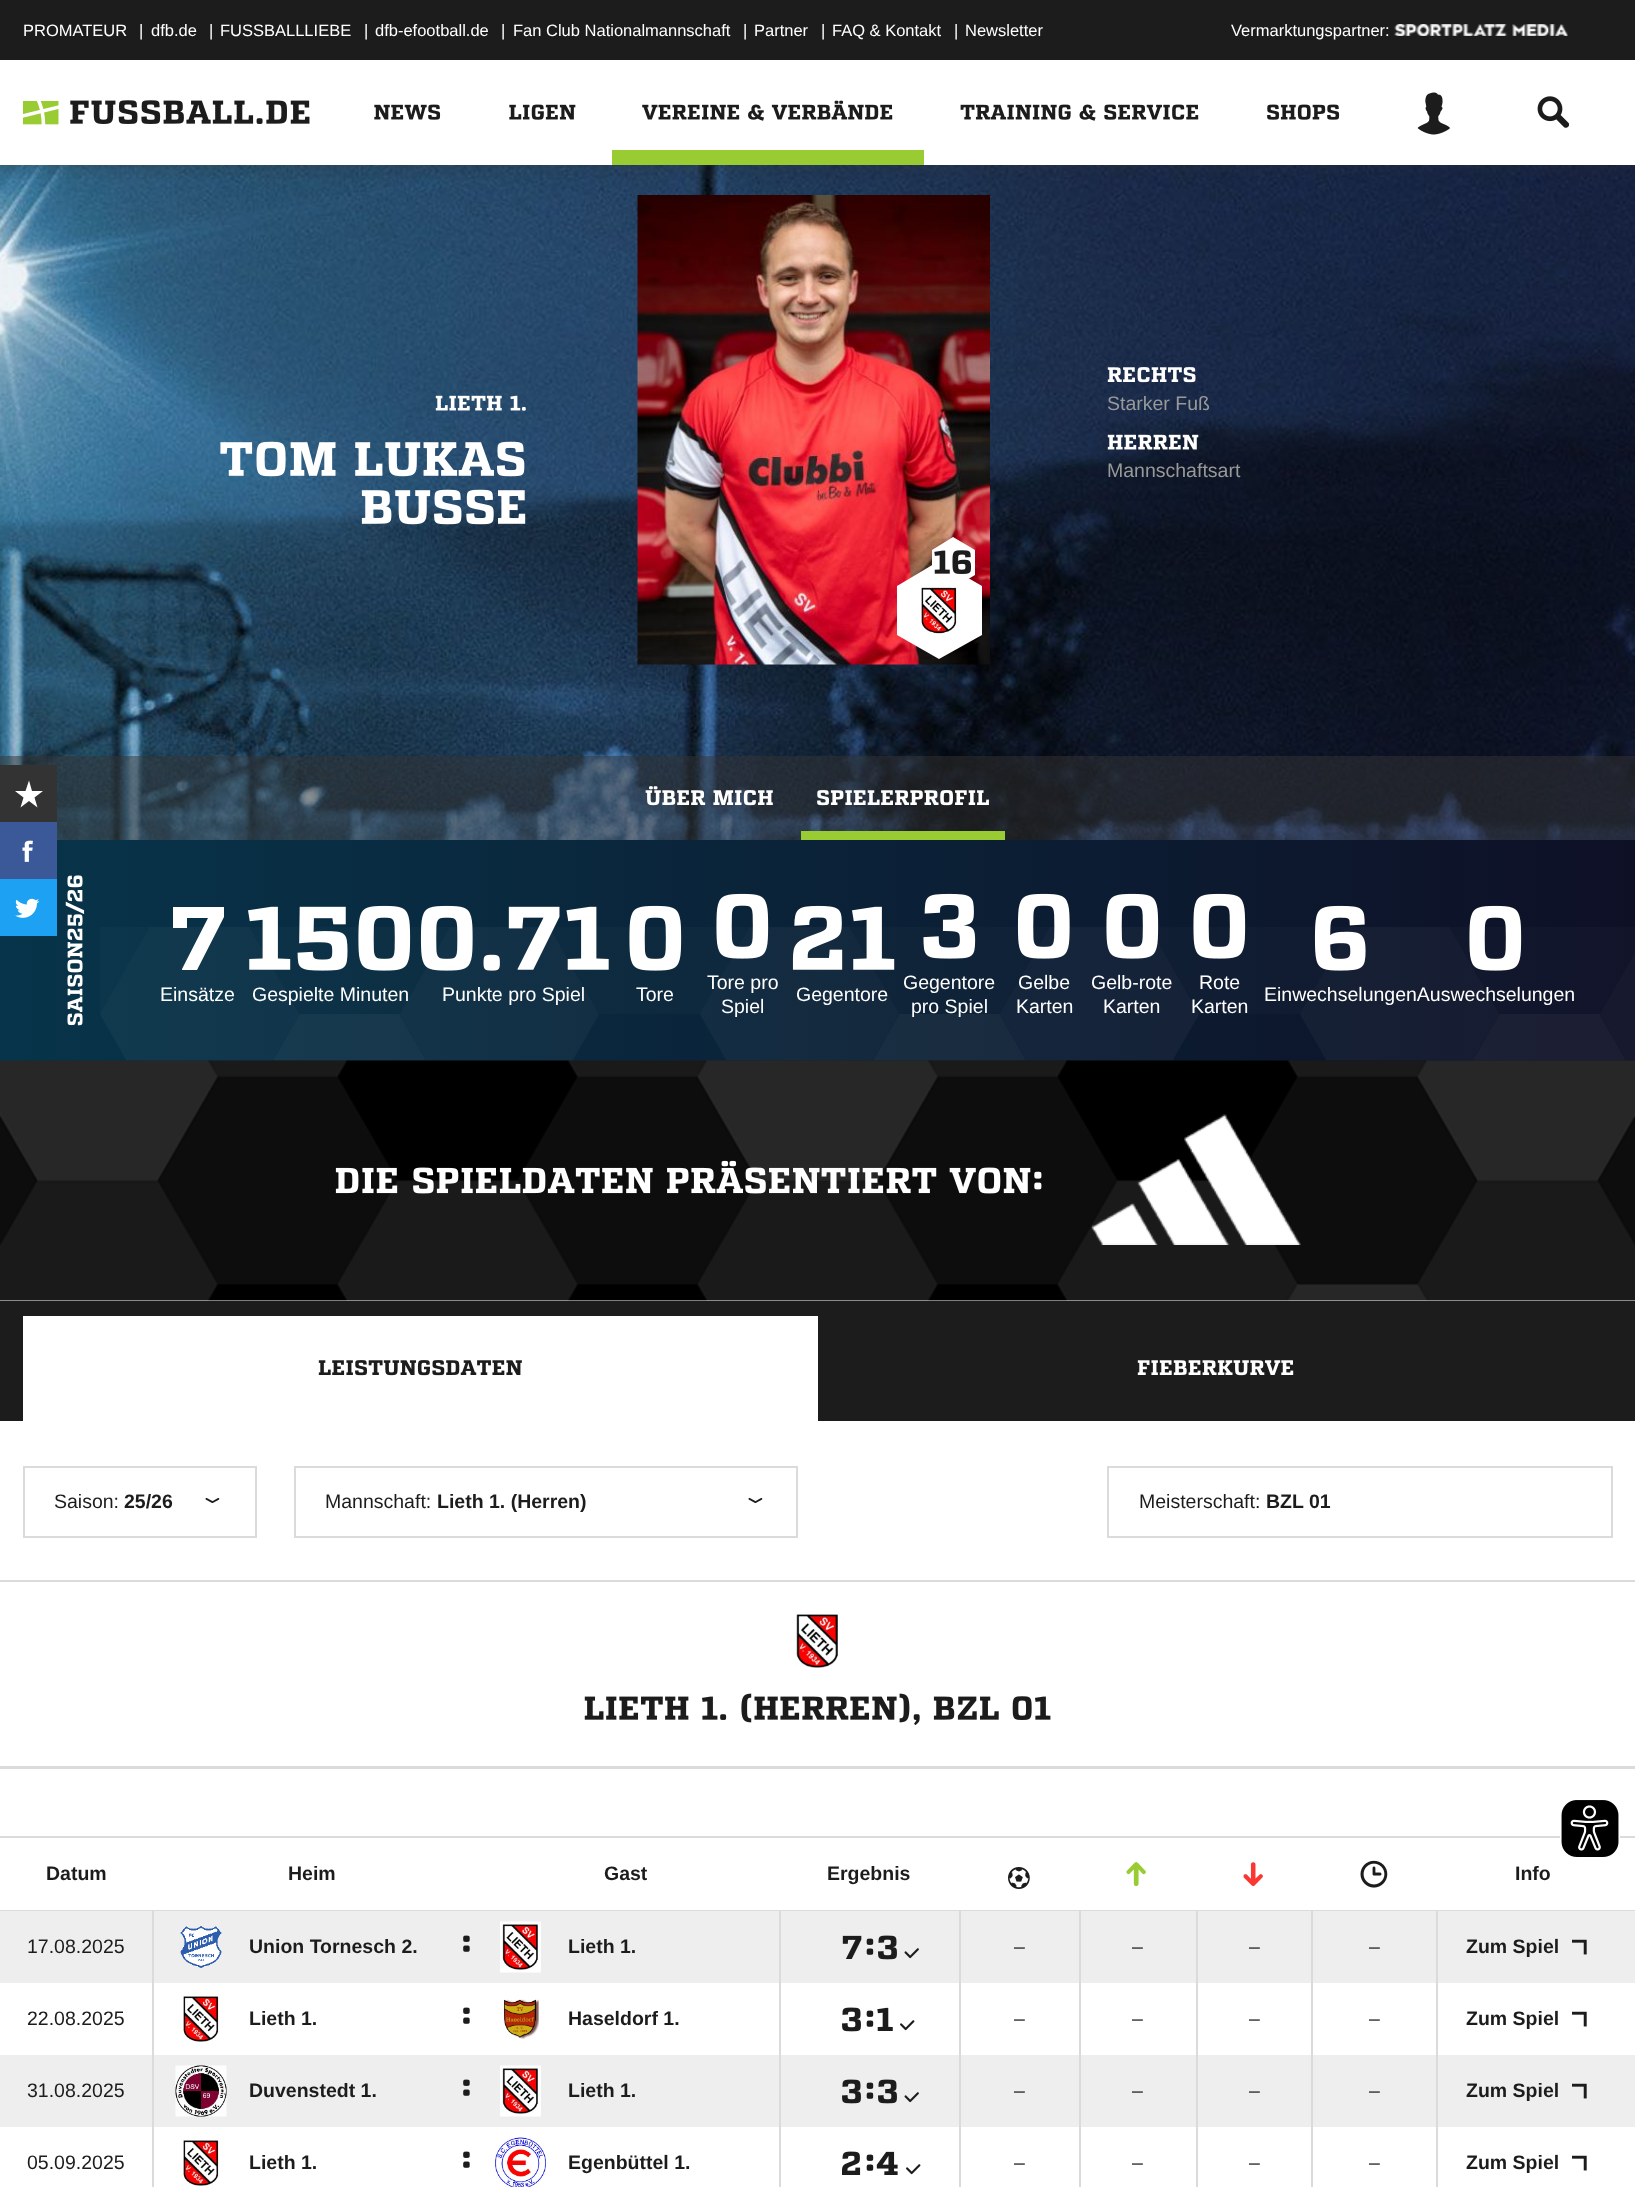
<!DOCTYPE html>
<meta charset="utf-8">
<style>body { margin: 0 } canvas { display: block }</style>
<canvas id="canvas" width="1635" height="2187"></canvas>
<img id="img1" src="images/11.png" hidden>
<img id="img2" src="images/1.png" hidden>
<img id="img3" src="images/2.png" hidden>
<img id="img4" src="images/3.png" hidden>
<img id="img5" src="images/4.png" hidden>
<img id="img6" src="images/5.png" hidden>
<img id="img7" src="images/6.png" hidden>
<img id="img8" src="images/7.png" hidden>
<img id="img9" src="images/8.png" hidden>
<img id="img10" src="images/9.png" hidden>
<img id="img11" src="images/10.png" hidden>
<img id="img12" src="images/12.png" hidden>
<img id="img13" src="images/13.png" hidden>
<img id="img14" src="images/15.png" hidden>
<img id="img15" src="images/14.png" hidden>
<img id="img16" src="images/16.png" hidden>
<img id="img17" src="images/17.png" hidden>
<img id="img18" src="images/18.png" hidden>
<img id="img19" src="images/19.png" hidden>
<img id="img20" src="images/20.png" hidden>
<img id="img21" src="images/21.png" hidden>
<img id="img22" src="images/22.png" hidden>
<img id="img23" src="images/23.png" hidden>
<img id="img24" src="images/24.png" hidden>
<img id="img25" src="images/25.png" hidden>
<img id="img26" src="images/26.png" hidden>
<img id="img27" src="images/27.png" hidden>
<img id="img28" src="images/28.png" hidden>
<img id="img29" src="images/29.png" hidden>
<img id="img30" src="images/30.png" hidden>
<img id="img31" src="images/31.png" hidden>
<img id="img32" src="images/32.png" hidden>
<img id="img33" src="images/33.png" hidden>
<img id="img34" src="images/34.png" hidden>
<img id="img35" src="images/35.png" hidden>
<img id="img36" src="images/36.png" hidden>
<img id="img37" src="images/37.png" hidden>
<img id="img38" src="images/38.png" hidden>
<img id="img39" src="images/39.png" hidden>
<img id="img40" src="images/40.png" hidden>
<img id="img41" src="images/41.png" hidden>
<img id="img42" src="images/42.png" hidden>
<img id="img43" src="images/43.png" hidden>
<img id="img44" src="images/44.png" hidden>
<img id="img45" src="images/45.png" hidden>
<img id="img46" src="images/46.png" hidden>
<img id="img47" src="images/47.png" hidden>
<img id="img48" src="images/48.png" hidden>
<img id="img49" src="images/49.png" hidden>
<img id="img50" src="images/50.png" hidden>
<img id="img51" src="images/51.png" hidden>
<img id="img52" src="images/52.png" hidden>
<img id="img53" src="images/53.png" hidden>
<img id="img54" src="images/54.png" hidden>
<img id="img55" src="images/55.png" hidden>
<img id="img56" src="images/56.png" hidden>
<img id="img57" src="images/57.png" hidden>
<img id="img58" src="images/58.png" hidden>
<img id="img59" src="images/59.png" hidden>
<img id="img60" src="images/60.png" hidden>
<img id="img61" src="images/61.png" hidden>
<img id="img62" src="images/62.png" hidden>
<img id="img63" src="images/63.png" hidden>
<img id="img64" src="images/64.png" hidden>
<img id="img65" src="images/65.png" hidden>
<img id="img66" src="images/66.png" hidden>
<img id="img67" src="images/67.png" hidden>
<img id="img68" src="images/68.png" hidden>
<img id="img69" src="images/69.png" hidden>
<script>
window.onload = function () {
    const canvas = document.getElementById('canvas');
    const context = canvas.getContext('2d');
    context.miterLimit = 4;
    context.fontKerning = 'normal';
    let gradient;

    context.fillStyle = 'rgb(255, 255, 255)';
    context.fillRect(0, 0, 1635, 2187);
    context.drawImage(document.getElementById('img1'), 0, 165, 1635, 675);
    context.save();
    context.beginPath();
    context.rect(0, 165, 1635, 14);
    context.clip();
    context.fillStyle = 'rgba(51, 51, 51, 0.3)';
    context.filter = 'blur(7.5px)';
    context.beginPath();
    context.rect(3, 3, 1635, 165);
    context.fill();
    context.filter = 'none';
    context.restore();
    context.fillStyle = 'rgb(28, 28, 28)';
    context.fillRect(0, 0, 1635, 60);
    context.drawImage(document.getElementById('img2'), 1394, 24, 174, 12);
    context.drawImage(document.getElementById('img3'), 23, 101, 36, 24);
    context.drawImage(document.getElementById('img4'), 70, 100, 240, 24);
    context.drawImage(document.getElementById('img5'), 374, 104, 67, 16);
    context.drawImage(document.getElementById('img6'), 509, 104, 67, 16);
    context.fillStyle = 'rgb(153, 204, 51)';
    context.fillRect(612, 150, 312, 15);
    context.drawImage(document.getElementById('img7'), 642, 100, 251, 21);
    context.drawImage(document.getElementById('img8'), 960, 104, 239, 17);
    context.drawImage(document.getElementById('img9'), 1267, 104, 73, 16);
    context.drawImage(document.getElementById('img10'), 1417, 92, 33, 43);
    context.drawImage(document.getElementById('img11'), 1537, 96, 33, 32);
    context.drawImage(document.getElementById('img12'), 435, 395, 91, 16);
    context.drawImage(document.getElementById('img13'), 637, 195, 353, 470);
    context.fillStyle = 'rgb(255, 255, 255)';
    context.beginPath();
    context.moveTo(982, 586);
    context.lineTo(982, 635);
    context.lineTo(939, 659);
    context.lineTo(897, 635);
    context.lineTo(897, 586);
    context.lineTo(939, 561);
    context.closePath();
    context.fill();
    context.drawImage(document.getElementById('img14'), 919, 585, 40, 49);
    context.beginPath();
    context.moveTo(975, 550);
    context.lineTo(975, 575);
    context.lineTo(953, 588);
    context.lineTo(932, 575);
    context.lineTo(932, 550);
    context.lineTo(953, 537);
    context.closePath();
    context.fill();
    context.drawImage(document.getElementById('img15'), 934, 550, 37, 24);
    context.drawImage(document.getElementById('img16'), 220, 441, 305, 36);
    context.drawImage(document.getElementById('img17'), 361, 489, 165, 36);
    context.drawImage(document.getElementById('img18'), 1107, 367, 89, 16);
    context.drawImage(document.getElementById('img19'), 1107, 434, 92, 16);
    context.fillStyle = 'rgba(51, 51, 51, 0.5)';
    context.fillRect(0, 756, 1635, 84);
    context.drawImage(document.getElementById('img20'), 645, 786, 128, 20);
    context.fillStyle = 'rgb(153, 204, 51)';
    context.fillRect(801, 831, 204, 9);
    context.drawImage(document.getElementById('img21'), 817, 790, 172, 16);
    gradient = context.createLinearGradient(0, 950, 1635, 950);
    gradient.addColorStop(0, 'rgb(7, 52, 74)');
    gradient.addColorStop(1, 'rgb(14, 16, 38)');
    context.fillStyle = gradient;
    context.fillRect(0, 840, 1635, 221);
    context.drawImage(document.getElementById('img22'), 100, 927, 1535, 134);
    context.drawImage(document.getElementById('img23'), 65, 875, 20, 151);
    context.drawImage(document.getElementById('img24'), 1469, 905, 53, 66);
    context.fillStyle = 'rgb(255, 255, 255)';
    context.beginPath();
    context.moveTo(224, 917);
    context.lineTo(197, 970);
    context.lineTo(182, 970);
    context.lineTo(182, 969);
    context.lineTo(208, 918);
    context.lineTo(187, 918);
    context.lineTo(187, 928);
    context.lineTo(173, 928);
    context.lineTo(173, 907);
    context.lineTo(224, 907);
    context.closePath();
    context.fill();
    context.drawImage(document.getElementById('img25'), 248, 905, 163, 66);
    context.drawImage(document.getElementById('img26'), 420, 905, 189, 66);
    context.drawImage(document.getElementById('img27'), 629, 905, 53, 66);
    context.drawImage(document.getElementById('img28'), 716, 893, 53, 66);
    context.drawImage(document.getElementById('img29'), 792, 905, 103, 65);
    context.drawImage(document.getElementById('img30'), 923, 893, 53, 66);
    context.drawImage(document.getElementById('img31'), 1017, 893, 53, 66);
    context.drawImage(document.getElementById('img32'), 1106, 893, 53, 66);
    context.drawImage(document.getElementById('img33'), 1193, 893, 53, 66);
    context.drawImage(document.getElementById('img34'), 1314, 905, 52, 66);
    context.drawImage(document.getElementById('img35'), 0, 1060, 1635, 241);
    context.drawImage(document.getElementById('img36'), 335, 1160, 707, 34);
    context.drawImage(document.getElementById('img37'), 1091, 1114, 210, 131);
    context.fillStyle = 'rgb(28, 28, 28)';
    context.fillRect(0, 1301, 1635, 120);
    context.fillStyle = 'rgb(255, 255, 255)';
    context.fillRect(23, 1316, 795, 105);
    context.drawImage(document.getElementById('img38'), 318, 1360, 204, 16);
    context.drawImage(document.getElementById('img39'), 1137, 1360, 157, 16);
    context.strokeStyle = 'rgb(219, 219, 219)';
    context.lineWidth = 2;
    context.strokeRect(24, 1467, 232, 70);
    context.drawImage(document.getElementById('img40'), 205, 1497, 15, 7);
    context.strokeRect(295, 1467, 502, 70);
    context.drawImage(document.getElementById('img40'), 748, 1497, 15, 7);
    context.strokeRect(1108, 1467, 504, 70);
    context.fillStyle = 'rgb(219, 219, 219)';
    context.fillRect(0, 1580, 1635, 2);
    context.fillRect(0, 1766, 1635, 3);
    context.drawImage(document.getElementById('img41'), 795, 1611, 46, 57);
    context.drawImage(document.getElementById('img42'), 584, 1693, 467, 32);
    context.fillRect(0, 1836, 1635, 2);
    context.fillRect(0, 1910, 1631, 1);
    context.drawImage(document.getElementById('img43'), 1008, 1867, 22, 22);
    context.drawImage(document.getElementById('img44'), 1126, 1862, 20, 25);
    context.drawImage(document.getElementById('img45'), 1243, 1862, 20, 25);
    context.drawImage(document.getElementById('img46'), 1360, 1860, 28, 28);
    context.fillRect(1631, 1910, 4, 1);
    context.fillStyle = 'rgb(238, 238, 238)';
    context.fillRect(154, 1911, 625, 72);
    context.fillRect(0, 2055, 1635, 72);
    context.fillStyle = 'rgb(219, 219, 219)';
    context.fillRect(152, 1911, 2, 276);
    context.drawImage(document.getElementById('img47'), 180, 1926, 42, 42);
    context.drawImage(document.getElementById('img48'), 463, 1935, 7, 17);
    context.drawImage(document.getElementById('img49'), 500, 1921, 41, 52);
    context.fillStyle = 'rgb(238, 238, 238)';
    context.fillRect(781, 1911, 178, 72);
    context.fillStyle = 'rgb(219, 219, 219)';
    context.fillRect(779, 1911, 2, 276);
    context.drawImage(document.getElementById('img50'), 842, 1935, 20, 24);
    context.drawImage(document.getElementById('img51'), 866, 1938, 8, 17);
    context.drawImage(document.getElementById('img52'), 878, 1935, 19, 25);
    context.drawImage(document.getElementById('img53'), 904, 1948, 15, 11);
    context.fillStyle = 'rgb(238, 238, 238)';
    context.fillRect(1438, 1911, 197, 72);
    context.fillRect(0, 1911, 152, 72);
    context.fillRect(961, 1911, 118, 72);
    context.fillStyle = 'rgb(219, 219, 219)';
    context.fillRect(959, 1911, 2, 276);
    context.fillStyle = 'rgb(238, 238, 238)';
    context.fillRect(1081, 1911, 115, 72);
    context.fillStyle = 'rgb(219, 219, 219)';
    context.fillRect(1079, 1911, 2, 276);
    context.fillStyle = 'rgb(238, 238, 238)';
    context.fillRect(1198, 1911, 113, 72);
    context.fillStyle = 'rgb(219, 219, 219)';
    context.fillRect(1196, 1911, 2, 276);
    context.fillStyle = 'rgb(238, 238, 238)';
    context.fillRect(1313, 1911, 123, 72);
    context.fillStyle = 'rgb(219, 219, 219)';
    context.fillRect(1311, 1911, 2, 276);
    context.fillRect(1436, 1911, 2, 276);
    context.drawImage(document.getElementById('img54'), 1572, 1939, 15, 16);
    context.drawImage(document.getElementById('img55'), 183, 1996, 38, 46);
    context.drawImage(document.getElementById('img56'), 463, 2007, 7, 17);
    context.drawImage(document.getElementById('img57'), 503, 1999, 36, 40);
    context.drawImage(document.getElementById('img58'), 842, 2007, 19, 25);
    context.drawImage(document.getElementById('img59'), 866, 2010, 8, 17);
    context.drawImage(document.getElementById('img60'), 877, 2007, 16, 24);
    context.drawImage(document.getElementById('img61'), 900, 2020, 15, 11);
    context.drawImage(document.getElementById('img62'), 1572, 2011, 15, 16);
    context.drawImage(document.getElementById('img63'), 175, 2065, 52, 52);
    context.drawImage(document.getElementById('img48'), 463, 2079, 7, 17);
    context.drawImage(document.getElementById('img49'), 500, 2065, 41, 52);
    context.drawImage(document.getElementById('img52'), 842, 2079, 19, 25);
    context.drawImage(document.getElementById('img51'), 866, 2082, 8, 17);
    context.drawImage(document.getElementById('img52'), 878, 2079, 19, 25);
    context.drawImage(document.getElementById('img53'), 904, 2092, 15, 11);
    context.drawImage(document.getElementById('img54'), 1572, 2083, 15, 16);
    context.drawImage(document.getElementById('img55'), 183, 2140, 38, 46);
    context.drawImage(document.getElementById('img56'), 463, 2151, 7, 17);
    context.drawImage(document.getElementById('img64'), 495, 2137, 51, 50);
    context.drawImage(document.getElementById('img65'), 842, 2151, 19, 24);
    context.drawImage(document.getElementById('img59'), 866, 2154, 8, 17);
    context.drawImage(document.getElementById('img66'), 876, 2151, 22, 24);
    context.drawImage(document.getElementById('img61'), 906, 2164, 15, 11);
    context.drawImage(document.getElementById('img62'), 1572, 2155, 15, 16);
    context.fillStyle = 'rgb(51, 51, 51)';
    context.fillRect(0, 765, 57, 57);
    context.fillStyle = 'rgb(255, 255, 255)';
    context.beginPath();
    context.moveTo(29, 801);
    context.lineTo(20.5, 807.5);
    context.lineTo(23.5, 797.5);
    context.lineTo(15, 791);
    context.lineTo(25.5, 791);
    context.lineTo(29, 780.5);
    context.lineTo(32, 791);
    context.lineTo(43, 791);
    context.lineTo(34.5, 797.5);
    context.lineTo(37.5, 807.5);
    context.closePath();
    context.fill();
    context.fillStyle = 'rgb(59, 89, 152)';
    context.fillRect(0, 822, 57, 57);
    context.drawImage(document.getElementById('img67'), 22, 840, 11, 22);
    context.fillStyle = 'rgb(29, 161, 242)';
    context.fillRect(0, 879, 57, 57);
    context.drawImage(document.getElementById('img68'), 15, 898, 25, 20);
    context.drawImage(document.getElementById('img69'), 1560, 1800, 60, 57);
    context.font = '16.5px Liberation Sans';
    context.fillStyle = 'rgb(255, 255, 255)';
    context.fillText('PROMATEUR', 23, 36);
    context.fillText('|', 139, 36);
    context.fillText('dfb.de', 151, 36);
    context.fillText('|', 209, 36);
    context.fillText('FUSSBALLLIEBE', 220, 36);
    context.fillText('|', 364, 36);
    context.fillText('dfb-efootball.de', 375, 36);
    context.fillText('|', 501, 36);
    context.fillText('Fan Club Nationalmannschaft', 513, 36);
    context.fillText('|', 743, 36);
    context.fillText('Partner', 754, 36);
    context.fillText('|', 821, 36);
    context.fillText('FAQ & Kontakt', 832, 36);
    context.fillText('|', 954, 36);
    context.fillText('Newsletter', 965, 36);
    context.fillText('Vermarktungspartner:', 1231, 36);
    context.font = '19.5px Liberation Sans';
    context.fillStyle = 'rgb(153, 153, 153)';
    context.fillText('Starker Fuß', 1107, 410);
    context.fillText('Mannschaftsart', 1107, 477);
    context.fillStyle = 'rgb(255, 255, 255)';
    context.fillText('Einsätze', 160, 1001);
    context.fillText('Gespielte Minuten', 252, 1001);
    context.fillText('Punkte pro Spiel', 442, 1001);
    context.fillText('Tore', 636, 1001);
    context.fillText('Tore pro', 707, 989);
    context.fillText('Spiel', 721, 1013);
    context.fillText('Gegentore', 796, 1001);
    context.fillText('Gegentore', 903, 989);
    context.fillText('pro Spiel', 911, 1013);
    context.fillText('Gelbe', 1018, 989);
    context.fillText('Karten', 1016, 1013);
    context.fillText('Gelb-rote', 1091, 989);
    context.fillText('Karten', 1103, 1013);
    context.fillText('Rote', 1199, 989);
    context.fillText('Karten', 1191, 1013);
    context.fillText('EinwechselungenAuswechselungen', 1264, 1001);
    context.fillStyle = 'rgb(28, 28, 28)';
    context.fillText('Saison:', 54, 1508);
    context.font = 'bold 19.5px Liberation Sans';
    context.fillText('25/26', 124, 1508);
    context.font = '19.5px Liberation Sans';
    context.fillText('Mannschaft:', 325, 1508);
    context.font = 'bold 19.5px Liberation Sans';
    context.fillText('Lieth 1. (Herren)', 437, 1508);
    context.font = '19.5px Liberation Sans';
    context.fillText('Meisterschaft:', 1139, 1508);
    context.font = 'bold 19.5px Liberation Sans';
    context.fillText('BZL 01', 1266, 1508);
    context.fillText('Datum', 46, 1880);
    context.fillText('Heim', 288, 1880);
    context.fillText('Gast', 604, 1880);
    context.fillText('Ergebnis', 827, 1880);
    context.fillText('Info', 1515, 1880);
    context.fillText('Union Tornesch 2.', 249, 1953);
    context.fillText('Lieth 1.', 568, 1953);
    context.font = '19.5px Liberation Sans';
    context.fillText('17.08.2025', 27, 1953);
    context.fillText('–', 1014, 1953);
    context.fillText('–', 1132, 1953);
    context.fillText('–', 1249, 1953);
    context.fillText('–', 1369, 1953);
    context.font = 'bold 19.5px Liberation Sans';
    context.fillText('Zum Spiel', 1466, 1953);
    context.font = '19.5px Liberation Sans';
    context.fillText('22.08.2025', 27, 2025);
    context.font = 'bold 19.5px Liberation Sans';
    context.fillText('Lieth 1.', 249, 2025);
    context.fillText('Haseldorf 1.', 568, 2025);
    context.font = '19.5px Liberation Sans';
    context.fillText('–', 1014, 2025);
    context.fillText('–', 1132, 2025);
    context.fillText('–', 1249, 2025);
    context.fillText('–', 1369, 2025);
    context.font = 'bold 19.5px Liberation Sans';
    context.fillText('Zum Spiel', 1466, 2025);
    context.font = '19.5px Liberation Sans';
    context.fillText('31.08.2025', 27, 2097);
    context.font = 'bold 19.5px Liberation Sans';
    context.fillText('Duvenstedt 1.', 249, 2097);
    context.fillText('Lieth 1.', 568, 2097);
    context.font = '19.5px Liberation Sans';
    context.fillText('–', 1014, 2097);
    context.fillText('–', 1132, 2097);
    context.fillText('–', 1249, 2097);
    context.fillText('–', 1369, 2097);
    context.font = 'bold 19.5px Liberation Sans';
    context.fillText('Zum Spiel', 1466, 2097);
    context.font = '19.5px Liberation Sans';
    context.fillText('05.09.2025', 27, 2169);
    context.font = 'bold 19.5px Liberation Sans';
    context.fillText('Lieth 1.', 249, 2169);
    context.fillText('Egenbüttel 1.', 568, 2169);
    context.font = '19.5px Liberation Sans';
    context.fillText('–', 1014, 2169);
    context.fillText('–', 1132, 2169);
    context.fillText('–', 1249, 2169);
    context.fillText('–', 1369, 2169);
    context.font = 'bold 19.5px Liberation Sans';
    context.fillText('Zum Spiel', 1466, 2169);
};
</script>
